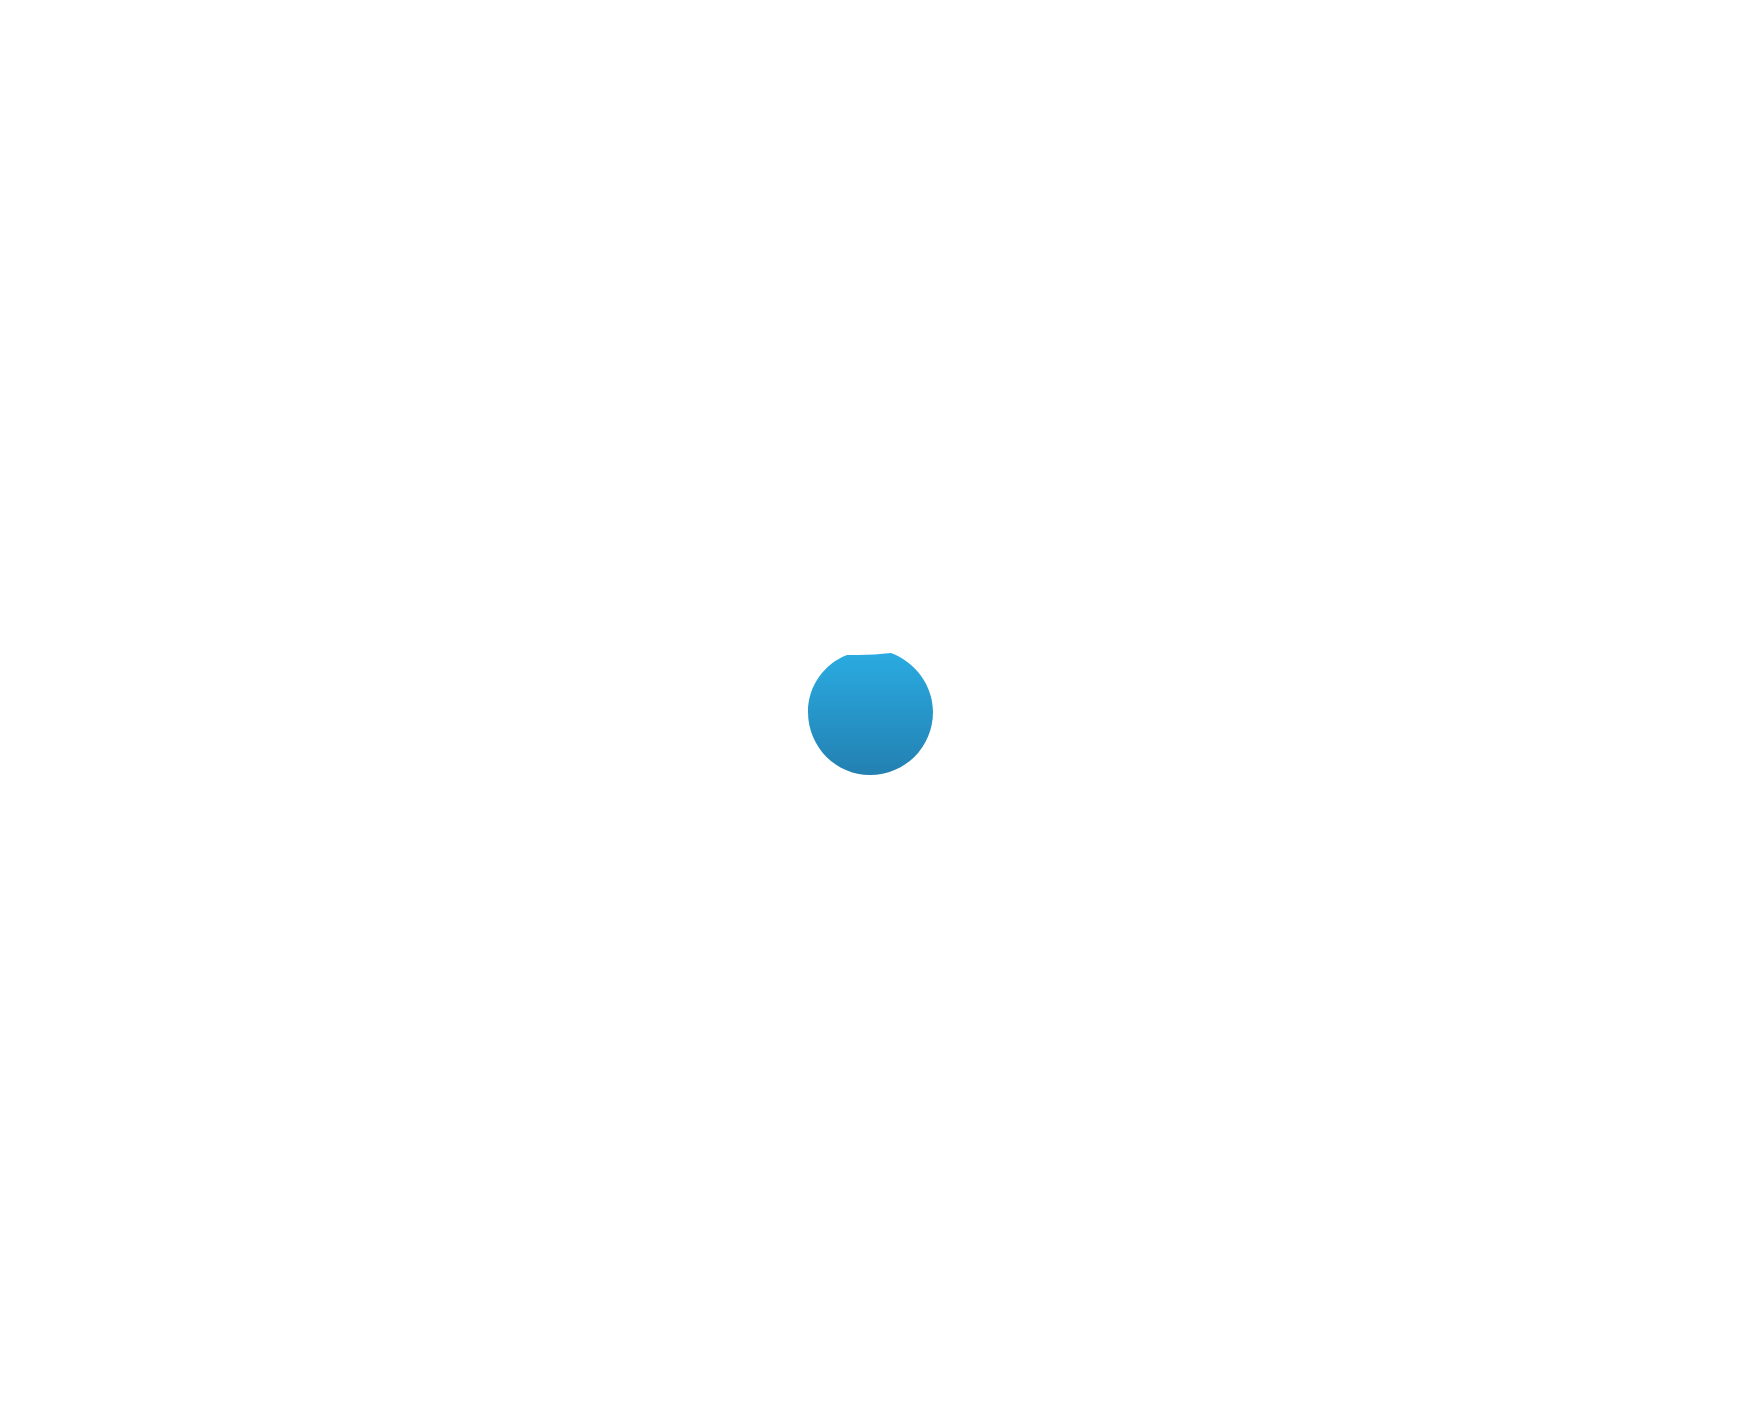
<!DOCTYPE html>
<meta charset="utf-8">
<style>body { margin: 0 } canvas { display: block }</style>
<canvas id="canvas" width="1738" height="1423"></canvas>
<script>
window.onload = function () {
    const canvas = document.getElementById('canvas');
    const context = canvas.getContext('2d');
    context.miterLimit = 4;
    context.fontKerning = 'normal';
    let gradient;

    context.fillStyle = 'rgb(255, 255, 255)';
    context.fillRect(0, 0, 1738, 1423);
    gradient = context.createLinearGradient(807, 650, 807, 1025);
    gradient.addColorStop(0, 'rgb(42, 172, 226)');
    gradient.addColorStop(1, 'rgb(21, 40, 80)');
    context.fillStyle = gradient;
    context.beginPath();
    context.moveTo(847, 655);
    context.lineTo(858, 655);
    context.bezierCurveTo(869, 655, 880, 654, 891, 653);
    context.bezierCurveTo(915, 662, 933, 685, 933, 712);
    context.bezierCurveTo(933, 747, 905, 775, 870, 775);
    context.bezierCurveTo(836, 775, 808, 747, 808, 712);
    context.bezierCurveTo(808, 686, 824, 664, 847, 655);
    context.closePath();
    context.fill();
};
</script>
